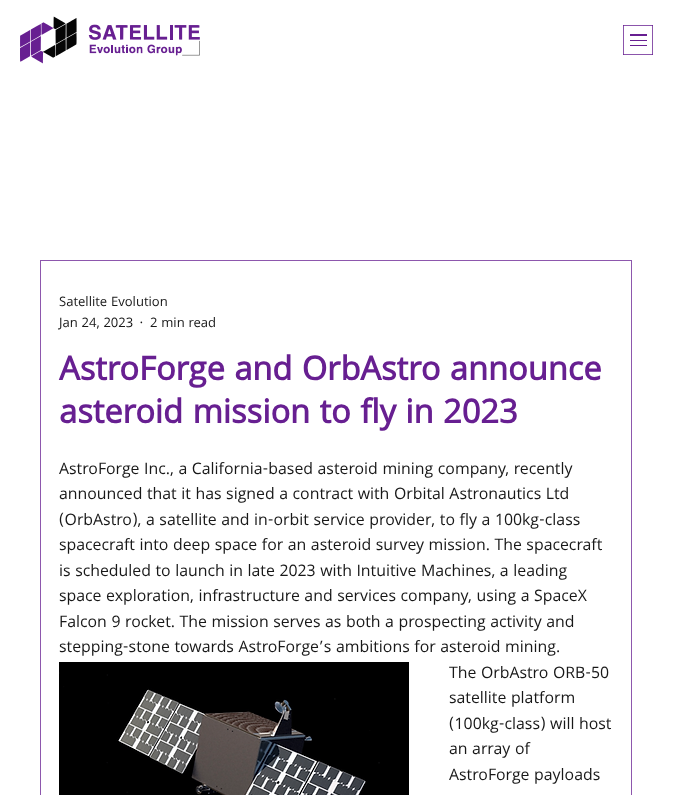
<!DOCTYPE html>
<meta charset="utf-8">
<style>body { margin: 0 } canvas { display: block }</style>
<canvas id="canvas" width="673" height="795"></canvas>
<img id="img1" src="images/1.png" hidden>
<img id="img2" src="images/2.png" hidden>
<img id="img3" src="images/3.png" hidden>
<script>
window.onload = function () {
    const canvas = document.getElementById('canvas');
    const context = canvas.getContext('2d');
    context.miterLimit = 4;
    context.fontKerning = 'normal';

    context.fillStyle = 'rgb(255, 255, 255)';
    context.fillRect(0, 0, 673, 795);
    context.drawImage(document.getElementById('img1'), 20, 16, 180, 48);
    context.drawImage(document.getElementById('img2'), 623, 25, 30, 30);
    context.strokeStyle = 'rgb(141, 87, 173)';
    context.strokeRect(40.5, 260.5, 591, 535);
    context.drawImage(document.getElementById('img3'), 59, 662, 350, 133);
    context.font = '14px Khula';
    context.fillStyle = 'rgb(24, 24, 24)';
    context.fillText('Satellite Evolution', 59, 306);
    context.fillText('Jan 24, 2023', 59, 327);
    context.font = '14px Liberation Serif';
    context.fillText('·', 139, 327);
    context.font = '14px Khula';
    context.fillText('2 min read', 150, 327);
    context.font = 'bold 35px Khula';
    context.fillStyle = 'rgb(103, 31, 145)';
    context.fillText('AstroForge and OrbAstro announce', 59, 380);
    context.fillText('asteroid mission to fly in 2023', 59, 423);
    context.font = '17px Khula';
    context.fillStyle = 'rgb(24, 24, 24)';
    context.fillText('AstroForge Inc., a California-based asteroid mining company, recently', 59, 474);
    context.fillText('announced that it has signed a contract with Orbital Astronautics Ltd', 59, 499);
    context.fillText('(OrbAstro), a satellite and in-orbit service provider, to fly a 100kg-class', 59, 525);
    context.fillText('spacecraft into deep space for an asteroid survey mission. The spacecraft', 59, 550);
    context.fillText('is scheduled to launch in late 2023 with Intuitive Machines, a leading', 59, 576);
    context.fillText('space exploration, infrastructure and services company, using a SpaceX', 59, 601);
    context.fillText('Falcon 9 rocket. The mission serves as both a prospecting activity and', 59, 627);
    context.fillText('stepping-stone towards AstroForge’s ambitions for asteroid mining.', 59, 652);
    context.fillText('The OrbAstro ORB-50', 449, 678);
    context.fillText('satellite platform', 449, 703);
    context.fillText('(100kg-class) will host', 449, 729);
    context.fillText('an array of', 449, 754);
    context.fillText('AstroForge payloads', 449, 780);
};
</script>
